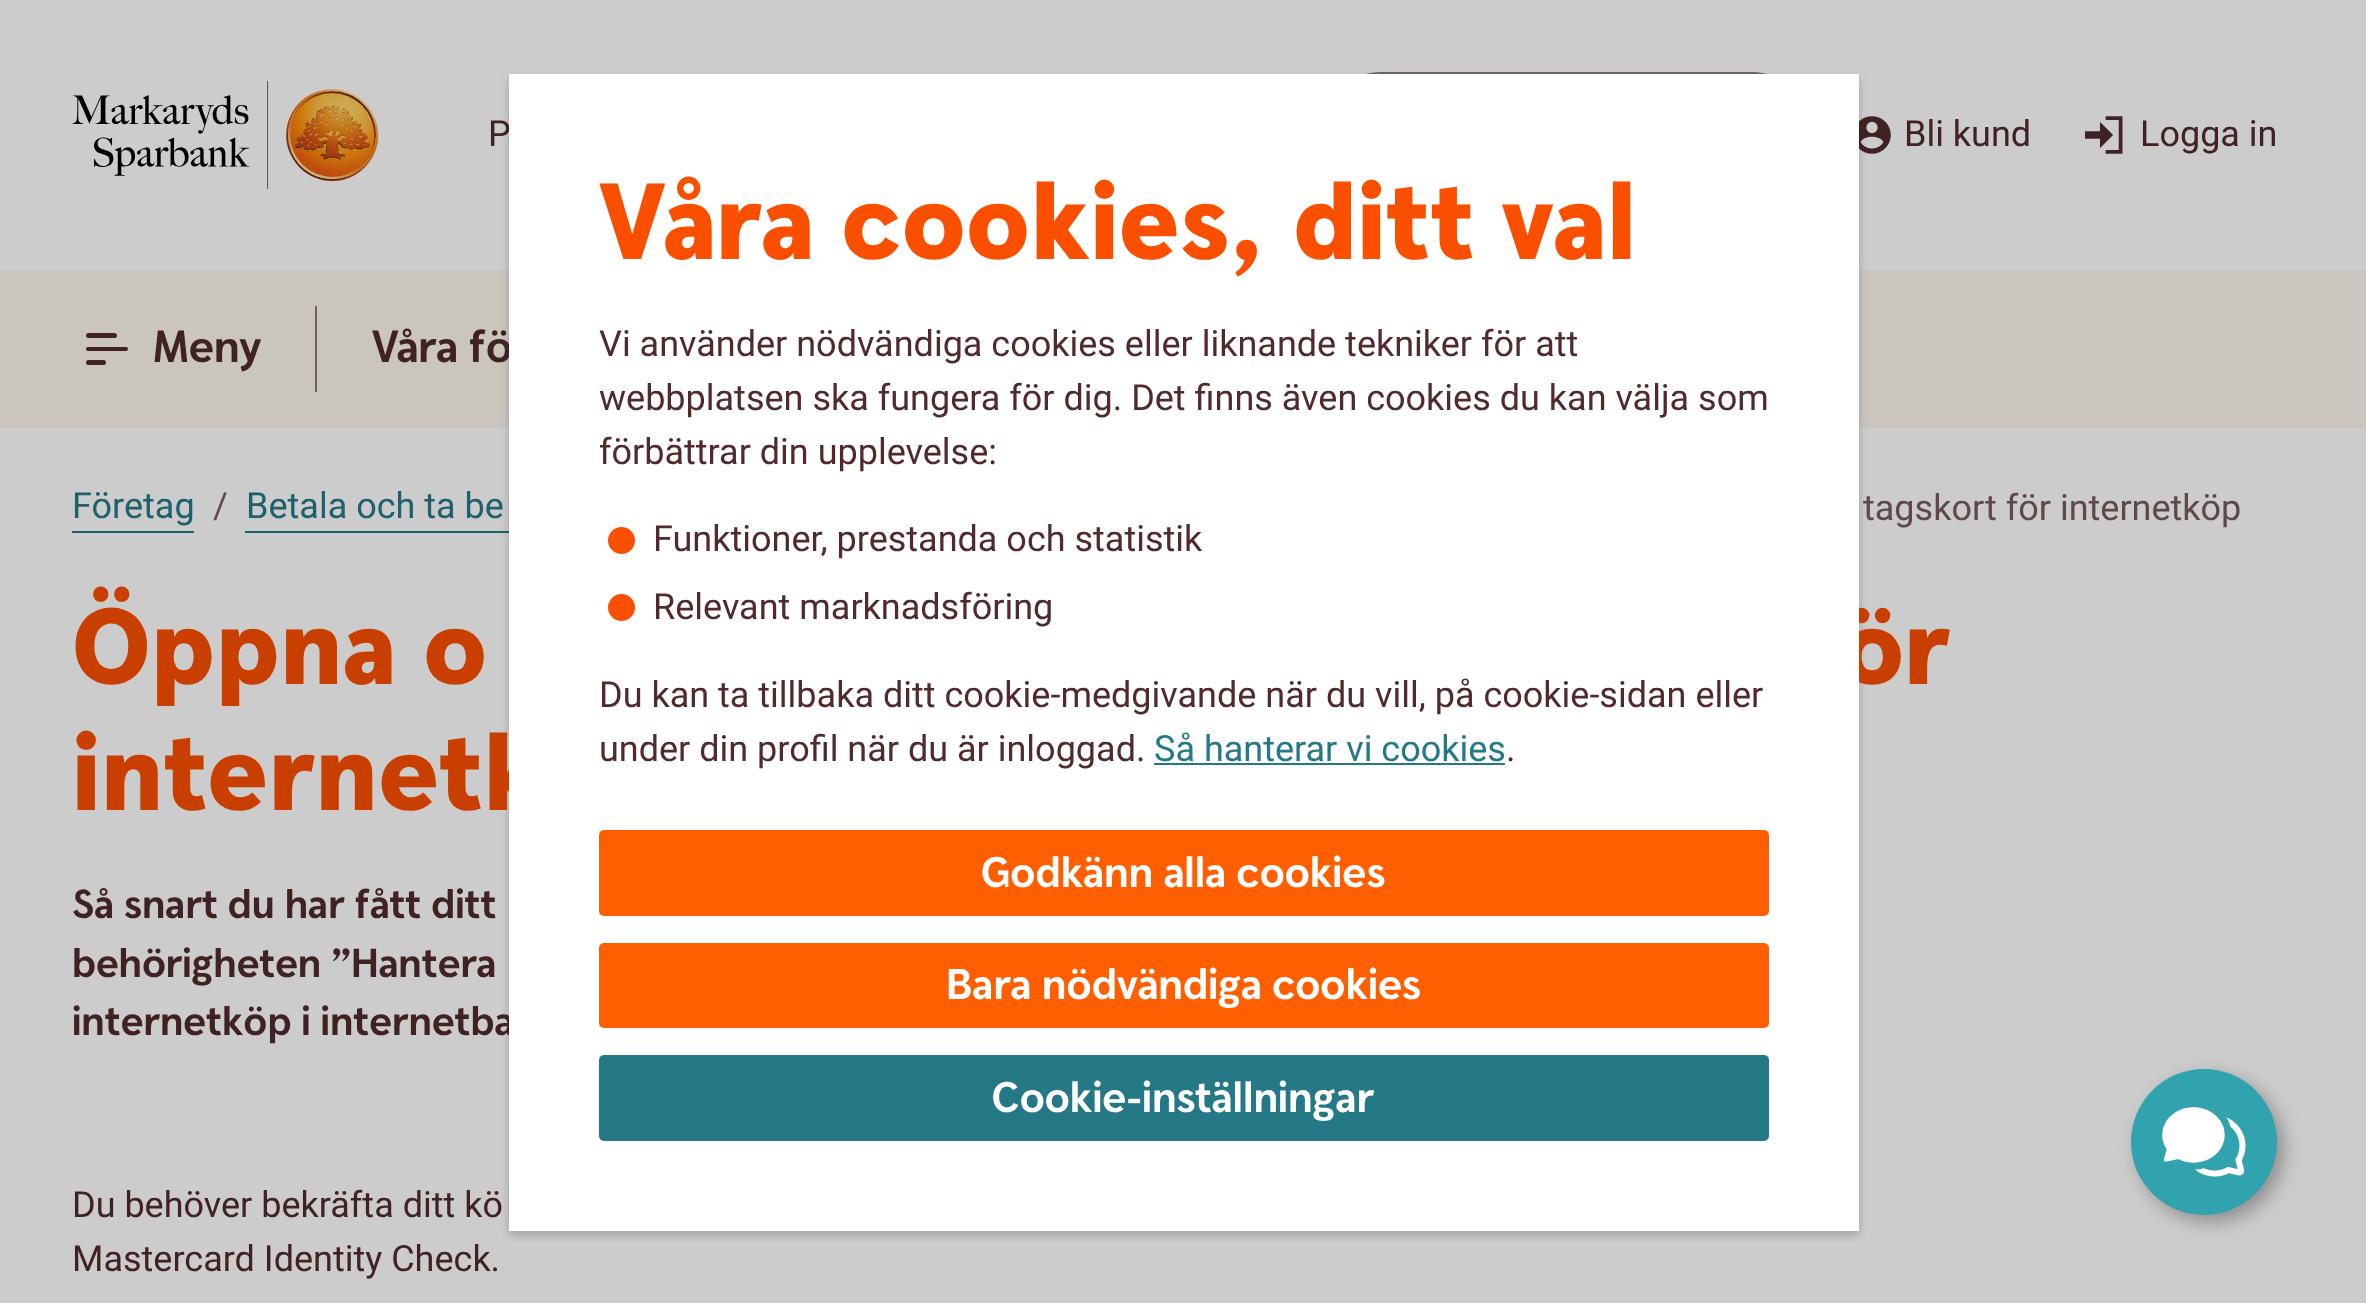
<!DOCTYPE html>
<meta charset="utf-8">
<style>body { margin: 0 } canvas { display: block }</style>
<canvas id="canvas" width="2366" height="1303"></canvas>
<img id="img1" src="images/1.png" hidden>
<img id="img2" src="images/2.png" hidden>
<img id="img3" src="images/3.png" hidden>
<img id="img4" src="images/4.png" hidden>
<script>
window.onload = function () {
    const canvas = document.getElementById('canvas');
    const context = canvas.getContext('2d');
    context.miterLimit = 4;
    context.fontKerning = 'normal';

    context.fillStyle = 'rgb(204, 204, 204)';
    context.fillRect(0, 0, 2366, 1303);
    context.drawImage(document.getElementById('img1'), 72, 81, 307, 108);
    context.beginPath();
    context.roundRect(1320, 73, 493, 124, 62);
    context.strokeStyle = 'rgb(116, 96, 95)';
    context.lineWidth = 2;
    context.stroke();
    context.drawImage(document.getElementById('img2'), 1859, 116, 32, 38);
    context.drawImage(document.getElementById('img3'), 2085, 116, 38, 38);
    context.fillStyle = 'rgb(202, 197, 190)';
    context.fillRect(0, 270, 2366, 158);
    context.fillStyle = 'rgb(65, 34, 34)';
    context.beginPath();
    context.roundRect(86, 333, 31, 5, 2.5);
    context.fill();
    context.beginPath();
    context.roundRect(86, 347, 42, 4, 2);
    context.fill();
    context.beginPath();
    context.roundRect(86, 360, 20, 5, 2.5);
    context.fill();
    context.fillStyle = 'rgb(116, 96, 95)';
    context.fillRect(315, 306, 2, 86);
    context.fillStyle = 'rgb(30, 96, 107)';
    context.fillRect(72, 531, 122, 2);
    context.fillRect(245, 531, 264, 2);
    context.fillStyle = 'rgba(0, 0, 0, 0.2)';
    context.filter = 'blur(4.5px)';
    context.beginPath();
    context.rect(509, 79, 1350, 1156);
    context.fill();
    context.filter = 'none';
    context.fillStyle = 'rgb(144, 142, 142)';
    context.filter = 'blur(9px)';
    context.beginPath();
    context.roundRect(2138, 1076, 146, 146, 73);
    context.fill();
    context.filter = 'none';
    context.fillStyle = 'rgb(49, 163, 174)';
    context.beginPath();
    context.arc(2204, 1142, 73, 0, 2 * Math.PI);
    context.fill();
    context.drawImage(document.getElementById('img4'), 2162, 1107, 84, 70);
    context.font = '36px Roboto';
    context.fillStyle = 'rgb(65, 34, 34)';
    context.fillText('P', 488, 146);
    context.fillText('Bli kund', 1904, 146);
    context.fillText('Logga in', 2140, 146);
    context.font = 'bold 45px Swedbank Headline';
    context.fillText('Meny', 153, 362);
    context.fillText('Våra fö', 372, 362);
    context.font = '36px Roboto';
    context.fillStyle = 'rgb(30, 96, 107)';
    context.fillText('Företag', 72, 518);
    context.fillStyle = 'rgb(95, 72, 72)';
    context.fillText('/', 213, 518);
    context.fillStyle = 'rgb(30, 96, 107)';
    context.fillText('Betala och ta be', 246, 518);
    context.fillStyle = 'rgb(95, 72, 72)';
    context.fillText('tagskort för internetköp', 1863, 520);
    context.font = '900 108px Swedbank Headline';
    context.fillStyle = 'rgb(201, 63, 0)';
    context.fillText('Öppna o', 72, 684);
    context.fillText('ör', 1840, 684);
    context.fillText('internetk', 72, 810);
    context.font = 'bold 40.5px Swedbank Headline';
    context.fillStyle = 'rgb(65, 34, 34)';
    context.fillText('Så snart du har fått ditt', 72, 918);
    context.fillText('behörigheten ”Hantera', 72, 977);
    context.fillText('internetköp i internetba', 72, 1035);
    context.font = '36px Roboto';
    context.fillText('Du behöver bekräfta ditt kö', 72, 1217);
    context.fillText('Mastercard Identity Check.', 72, 1271);
    context.fillStyle = 'rgb(255, 255, 255)';
    context.fillRect(509, 74, 1350, 1157);
    context.font = '900 108px Swedbank Headline';
    context.fillStyle = 'rgb(251, 79, 0)';
    context.fillText('Våra cookies, ditt val', 599, 259);
    context.font = '36px Roboto';
    context.fillStyle = 'rgb(81, 43, 43)';
    context.fillText('Vi använder nödvändiga cookies eller liknande tekniker för att', 599, 356);
    context.fillText('webbplatsen ska fungera för dig. Det finns även cookies du kan välja som', 599, 410);
    context.fillText('förbättrar din upplevelse:', 599, 464);
    context.fillStyle = 'rgb(251, 79, 0)';
    context.beginPath();
    context.arc(621.5, 540.5, 13.5, 0, 2 * Math.PI);
    context.fill();
    context.fillStyle = 'rgb(81, 43, 43)';
    context.fillText('Funktioner, prestanda och statistik', 653, 551);
    context.fillStyle = 'rgb(251, 79, 0)';
    context.beginPath();
    context.arc(621.5, 607.5, 13.5, 0, 2 * Math.PI);
    context.fill();
    context.fillStyle = 'rgb(81, 43, 43)';
    context.fillText('Relevant marknadsföring', 653, 619);
    context.fillText('Du kan ta tillbaka ditt cookie-medgivande när du vill, på cookie-sidan eller', 599, 707);
    context.fillText('under din profil när du är inloggad.', 599, 761);
    context.fillStyle = 'rgb(37, 120, 134)';
    context.fillText('Så hanterar vi cookies', 1154, 761);
    context.fillRect(1154, 763, 351, 2);
    context.fillStyle = 'rgb(81, 43, 43)';
    context.fillText('.', 1506, 761);
    context.fillStyle = 'rgb(255, 95, 0)';
    context.beginPath();
    context.roundRect(599, 830, 1170, 86, 5);
    context.fill();
    context.font = 'bold 42.75px Swedbank Headline';
    context.fillStyle = 'rgb(255, 255, 255)';
    context.fillText('Godkänn alla cookies', 981, 887);
    context.fillStyle = 'rgb(255, 95, 0)';
    context.beginPath();
    context.roundRect(599, 943, 1170, 85, 5);
    context.fill();
    context.fillStyle = 'rgb(255, 255, 255)';
    context.fillText('Bara nödvändiga cookies', 946, 999);
    context.fillStyle = 'rgb(37, 120, 134)';
    context.beginPath();
    context.roundRect(599, 1055, 1170, 86, 5);
    context.fill();
    context.fillStyle = 'rgb(255, 255, 255)';
    context.fillText('Cookie-inställningar', 992, 1112);
};
</script>
